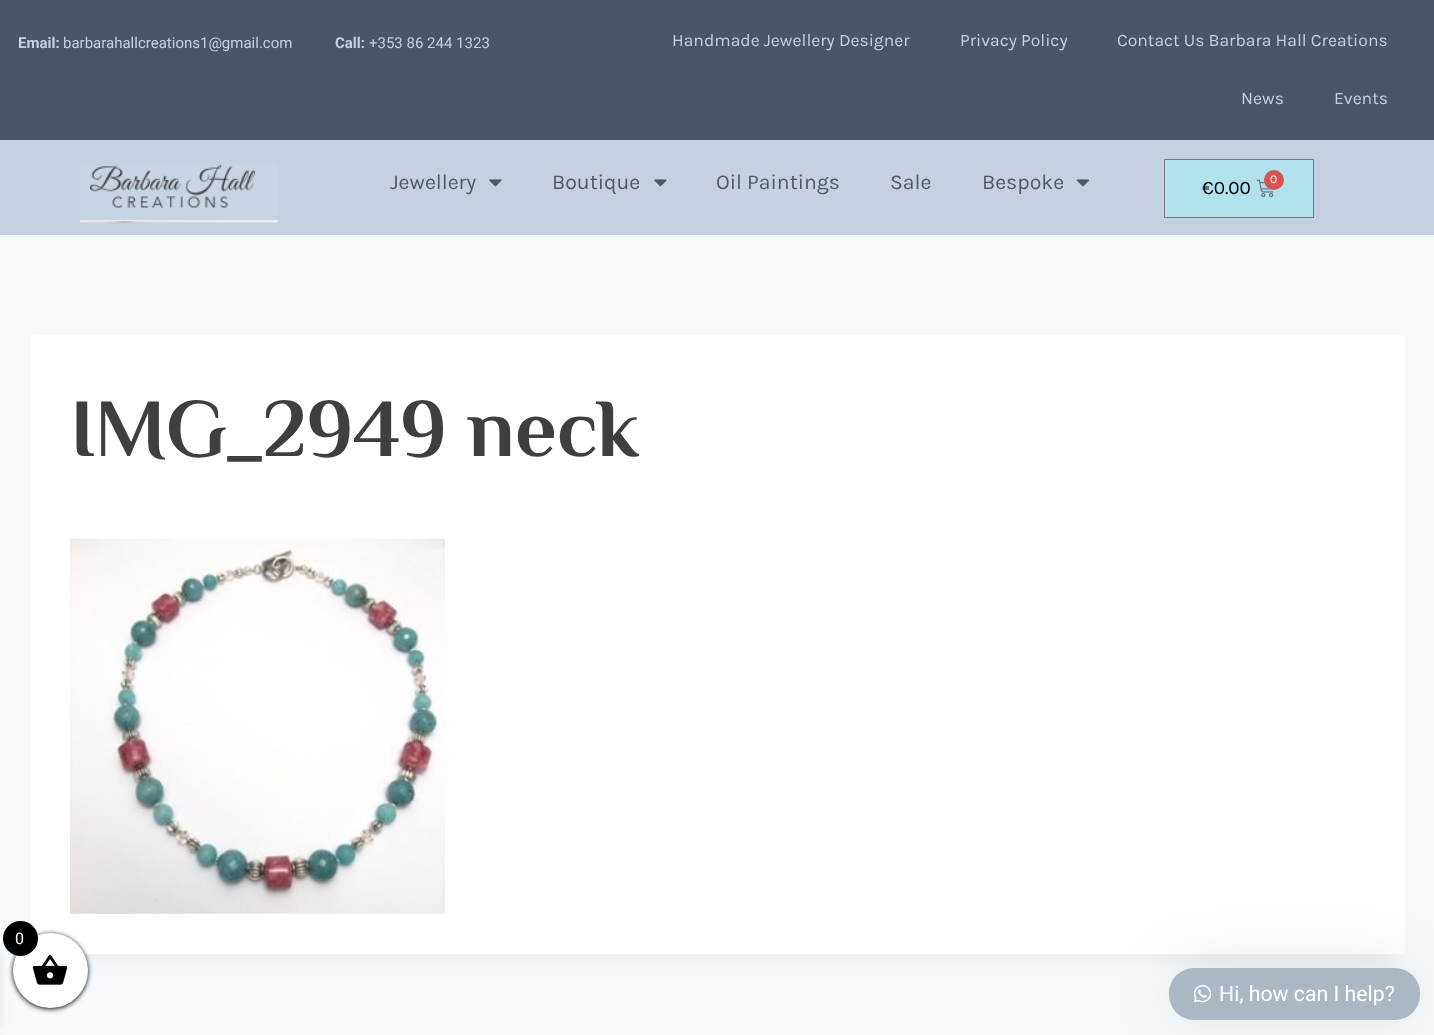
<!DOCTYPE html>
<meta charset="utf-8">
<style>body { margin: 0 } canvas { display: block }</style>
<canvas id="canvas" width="1434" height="1035"></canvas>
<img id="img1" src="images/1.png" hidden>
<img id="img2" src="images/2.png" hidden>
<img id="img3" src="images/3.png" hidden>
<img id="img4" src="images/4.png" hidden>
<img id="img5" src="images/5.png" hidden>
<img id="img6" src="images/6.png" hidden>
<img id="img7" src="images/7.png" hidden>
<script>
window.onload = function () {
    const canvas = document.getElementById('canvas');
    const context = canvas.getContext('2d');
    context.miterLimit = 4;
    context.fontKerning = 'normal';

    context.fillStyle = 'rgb(247, 250, 252)';
    context.fillRect(0, 0, 1434, 1035);
    context.fillStyle = 'rgb(74, 85, 104)';
    context.fillRect(0, 0, 1434, 140);
    context.fillStyle = 'rgb(197, 209, 222)';
    context.fillRect(0, 140, 1434, 95);
    context.drawImage(document.getElementById('img1'), 80, 165, 198, 58);
    context.drawImage(document.getElementById('img2'), 489, 179, 13, 8);
    context.drawImage(document.getElementById('img2'), 654, 179, 13, 8);
    context.drawImage(document.getElementById('img3'), 1076, 179, 13, 8);
    context.fillStyle = 'rgb(179, 226, 239)';
    context.beginPath();
    context.rect(1164.5, 159.5, 149, 58);
    context.fill();
    context.strokeStyle = 'rgb(122, 122, 122)';
    context.stroke();
    context.drawImage(document.getElementById('img4'), 1256, 179, 18, 19);
    context.fillStyle = 'rgb(217, 83, 79)';
    context.beginPath();
    context.arc(1274, 180, 10, 0, 2 * Math.PI);
    context.fill();
    context.fillStyle = 'rgba(0, 0, 0, 0.05)';
    context.filter = 'blur(9.5px)';
    context.beginPath();
    context.rect(43, 366, 1350, 594);
    context.fill();
    context.filter = 'none';
    context.fillStyle = 'rgb(255, 255, 255)';
    context.beginPath();
    context.roundRect(30, 335, 1375, 619, 5);
    context.fill();
    context.drawImage(document.getElementById('img5'), 70, 538, 375, 376);
    context.fillStyle = 'rgba(0, 0, 0, 0.1)';
    context.filter = 'blur(6px)';
    context.beginPath();
    context.rect(-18, 950, 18, 79);
    context.fill();
    context.filter = 'none';
    context.fillStyle = 'rgb(0, 0, 0)';
    context.filter = 'blur(2.5px)';
    context.beginPath();
    context.roundRect(13, 934, 75, 75, 37.5);
    context.fill();
    context.filter = 'none';
    context.fillStyle = 'rgb(255, 255, 255)';
    context.beginPath();
    context.arc(50.5, 970.5, 37.5, 0, 2 * Math.PI);
    context.fill();
    context.drawImage(document.getElementById('img6'), 32, 955, 36, 30);
    context.fillStyle = 'rgb(0, 0, 0)';
    context.beginPath();
    context.arc(20.5, 938.5, 17.5, 0, 2 * Math.PI);
    context.fill();
    context.fillStyle = 'rgba(0, 0, 0, 0.1)';
    context.filter = 'blur(31px)';
    context.beginPath();
    context.roundRect(1169, 968, 251, 52, 25);
    context.fill();
    context.filter = 'none';
    context.fillStyle = 'rgb(171, 184, 195)';
    context.beginPath();
    context.roundRect(1169, 968, 251, 52, 25);
    context.fill();
    context.drawImage(document.getElementById('img7'), 1194, 985, 18, 18);
    context.font = 'bold 15px Roboto';
    context.fillStyle = 'rgb(197, 209, 222)';
    context.fillText('Email:', 18, 48);
    context.font = '15px Roboto';
    context.fillText('barbarahallcreations1@gmail.com', 63, 48);
    context.font = 'bold 15px Roboto';
    context.fillText('Call:', 335, 48);
    context.font = '15px Roboto';
    context.fillText('+353 86 244 1323', 369, 48);
    context.font = '17.5px Karla';
    context.fillText('Handmade Jewellery Designer', 672, 46);
    context.fillText('Privacy Policy', 960, 46);
    context.fillText('Contact Us Barbara Hall Creations', 1117, 46);
    context.fillText('News', 1241, 104);
    context.fillText('Events', 1334, 104);
    context.font = '21.25px Karla';
    context.fillStyle = 'rgb(84, 89, 95)';
    context.fillText('Jewellery', 390, 189);
    context.fillText('Boutique', 552, 189);
    context.fillText('Oil Paintings', 716, 189);
    context.fillText('Sale', 890, 189);
    context.fillText('Bespoke', 982, 189);
    context.font = '12px Karla';
    context.fillStyle = 'rgb(255, 255, 255)';
    context.fillText('0', 1270, 183);
    context.font = '19px Karla';
    context.fillStyle = 'rgb(0, 0, 0)';
    context.fillText('€0.00', 1202, 194);
    context.font = 'bold 82.5px El Messiri';
    context.fillStyle = 'rgb(63, 63, 63)';
    context.fillText('IMG_2949 neck', 70, 456);
    context.font = '16px Roboto';
    context.fillStyle = 'rgb(255, 255, 255)';
    context.fillText('0', 15, 944);
    context.font = '21.25px Roboto';
    context.fillText('Hi, how can I help?', 1219, 1001);
};
</script>
